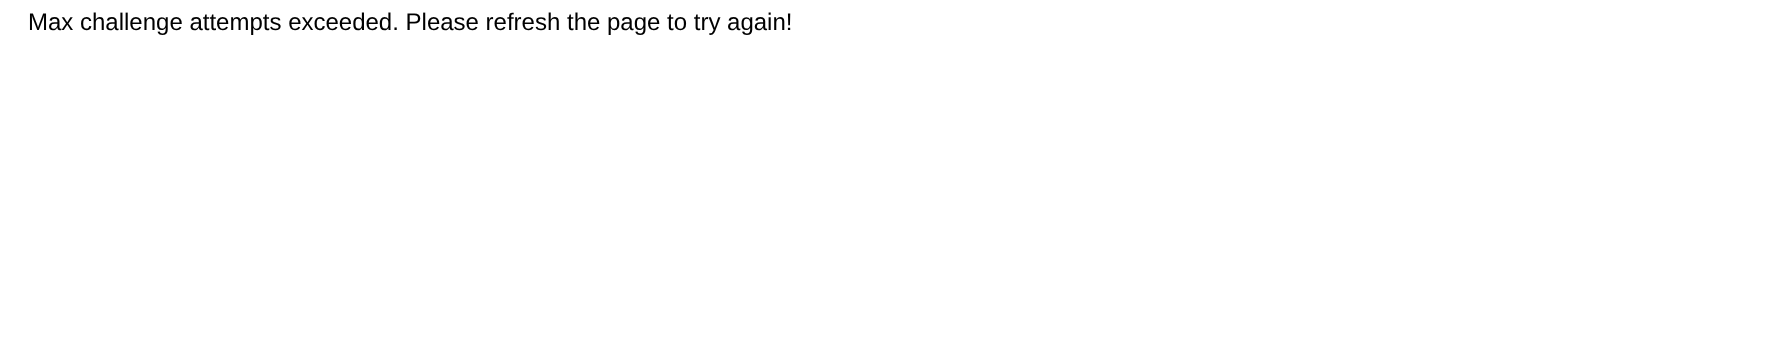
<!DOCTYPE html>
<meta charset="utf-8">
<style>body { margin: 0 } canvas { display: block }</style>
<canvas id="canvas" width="1785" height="346"></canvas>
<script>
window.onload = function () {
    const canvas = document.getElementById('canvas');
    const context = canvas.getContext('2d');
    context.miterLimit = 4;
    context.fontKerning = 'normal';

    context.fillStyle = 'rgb(255, 255, 255)';
    context.fillRect(0, 0, 1785, 346);
    context.font = '24px Liberation Sans';
    context.fillStyle = 'rgb(0, 0, 0)';
    context.fillText('Max challenge attempts exceeded. Please refresh the page to try again!', 28, 30);
};
</script>
